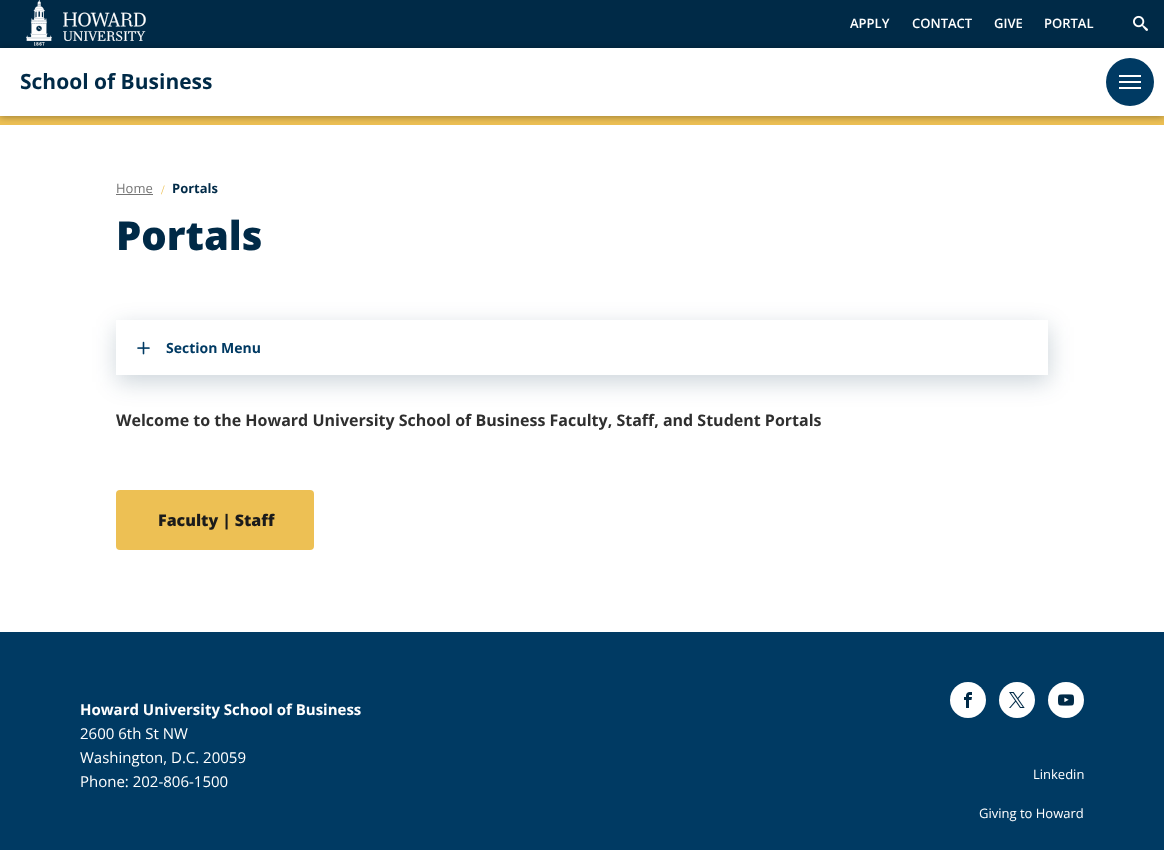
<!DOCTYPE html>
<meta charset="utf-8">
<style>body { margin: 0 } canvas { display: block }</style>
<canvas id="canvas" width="1164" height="850"></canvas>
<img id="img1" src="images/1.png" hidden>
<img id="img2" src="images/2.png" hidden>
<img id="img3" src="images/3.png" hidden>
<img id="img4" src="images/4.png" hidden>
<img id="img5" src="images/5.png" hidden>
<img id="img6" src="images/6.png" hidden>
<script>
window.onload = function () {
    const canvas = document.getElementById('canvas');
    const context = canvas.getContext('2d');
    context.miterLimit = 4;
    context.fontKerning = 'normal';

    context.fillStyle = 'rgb(255, 255, 255)';
    context.fillRect(0, 0, 1164, 850);
    context.fillStyle = 'rgb(0, 42, 71)';
    context.fillRect(0, 0, 1164, 48);
    context.drawImage(document.getElementById('img1'), 26, 0, 120, 46);
    context.drawImage(document.getElementById('img2'), 1133, 15, 15, 16);
    context.fillStyle = 'rgb(237, 192, 84)';
    context.fillRect(0, 116, 1164, 9);
    context.fillStyle = 'rgba(0, 0, 0, 0.35)';
    context.filter = 'blur(3.5px)';
    context.beginPath();
    context.rect(0, 49, 1164, 68);
    context.fill();
    context.filter = 'none';
    context.fillStyle = 'rgb(255, 255, 255)';
    context.fillRect(0, 48, 1164, 68);
    context.fillStyle = 'rgb(0, 58, 99)';
    context.beginPath();
    context.arc(1130, 82, 24, 0, 2 * Math.PI);
    context.fill();
    context.fillStyle = 'rgb(255, 255, 255)';
    context.fillRect(1119, 75, 22, 2);
    context.fillRect(1119, 81, 22, 2);
    context.fillRect(1119, 87, 22, 2);
    context.fillStyle = 'rgb(117, 117, 117)';
    context.fillRect(116, 194, 37, 1);
    context.save();
    context.beginPath();
    context.moveTo(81, 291);
    context.lineTo(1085, 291);
    context.lineTo(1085, 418);
    context.lineTo(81, 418);
    context.closePath();
    context.moveTo(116, 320);
    context.lineTo(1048, 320);
    context.lineTo(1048, 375);
    context.lineTo(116, 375);
    context.closePath();
    context.clip('evenodd');
    context.fillStyle = 'rgba(0, 42, 71, 0.2)';
    context.filter = 'blur(11.5px)';
    context.beginPath();
    context.rect(117, 327, 932, 55);
    context.fill();
    context.filter = 'none';
    context.restore();
    context.drawImage(document.getElementById('img3'), 137, 341, 13, 14);
    context.fillStyle = 'rgb(237, 192, 84)';
    context.beginPath();
    context.roundRect(116, 490, 198, 60, 4);
    context.fill();
    context.fillStyle = 'rgb(0, 58, 99)';
    context.fillRect(0, 632, 1164, 218);
    context.fillStyle = 'rgb(255, 255, 255)';
    context.beginPath();
    context.arc(968, 700, 18, 0, 2 * Math.PI);
    context.fill();
    context.drawImage(document.getElementById('img4'), 964, 692, 8, 16);
    context.beginPath();
    context.arc(1017, 700, 18, 0, 2 * Math.PI);
    context.fill();
    context.drawImage(document.getElementById('img5'), 1009, 692, 16, 16);
    context.beginPath();
    context.arc(1066, 700, 18, 0, 2 * Math.PI);
    context.fill();
    context.drawImage(document.getElementById('img6'), 1058, 694, 16, 12);
    context.font = '600 13px Open Sans';
    context.fillText('APPLY', 850, 28);
    context.fillText('CONTACT', 912, 28);
    context.fillText('GIVE', 994, 28);
    context.fillText('PORTAL', 1044, 28);
    context.font = 'bold 21px Open Sans';
    context.fillStyle = 'rgb(0, 42, 71)';
    context.fillText('School of Business', 20, 89);
    context.font = '13px Open Sans';
    context.fillStyle = 'rgb(117, 117, 117)';
    context.fillText('Home', 116, 193);
    context.font = '13px Liberation Serif';
    context.fillStyle = 'rgb(237, 192, 84)';
    context.fillText('/', 161, 194);
    context.font = 'bold 13px Open Sans';
    context.fillStyle = 'rgb(0, 42, 71)';
    context.fillText('Portals', 172, 193);
    context.font = '800 40px Open Sans';
    context.fillText('Portals', 116, 250);
    context.font = 'bold 14px Open Sans';
    context.fillStyle = 'rgb(0, 58, 99)';
    context.fillText('Section Menu', 166, 353);
    context.font = 'bold 16px Open Sans';
    context.fillStyle = 'rgb(47, 47, 47)';
    context.fillText('Welcome to the Howard University School of Business Faculty, Staff, and Student Portals', 116, 426);
    context.font = '800 16px Open Sans';
    context.fillStyle = 'rgb(27, 27, 27)';
    context.fillText('Faculty | Staff', 158, 526);
    context.font = 'bold 15px Open Sans';
    context.fillStyle = 'rgb(255, 255, 255)';
    context.fillText('Howard University School of Business', 80, 715);
    context.font = '15px Open Sans';
    context.fillText('2600 6th St NW', 80, 739);
    context.fillText('Washington, D.C. 20059', 80, 763);
    context.fillText('Phone: 202-806-1500', 80, 787);
    context.font = '13px Open Sans';
    context.fillText('Linkedin', 1033, 779);
    context.fillText('Giving to Howard', 979, 818);
};
</script>
